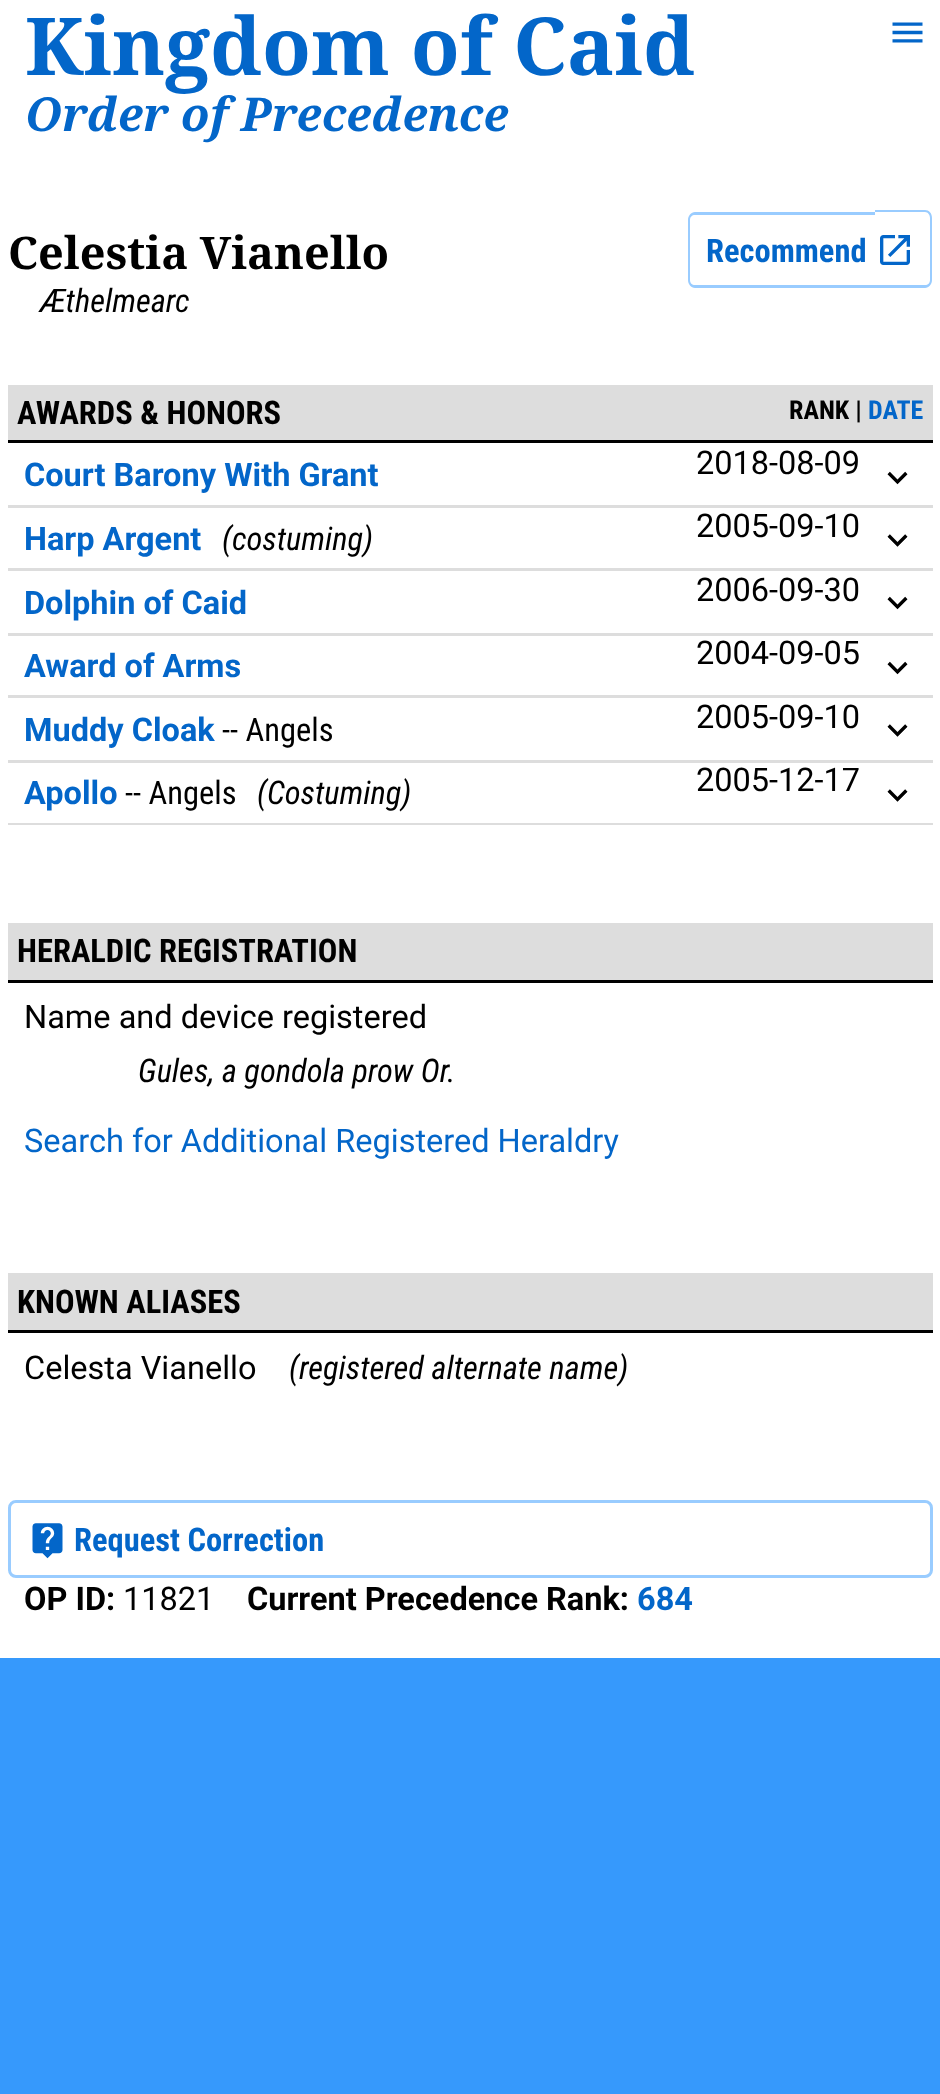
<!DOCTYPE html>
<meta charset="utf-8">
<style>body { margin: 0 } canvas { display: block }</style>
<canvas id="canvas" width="940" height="2094"></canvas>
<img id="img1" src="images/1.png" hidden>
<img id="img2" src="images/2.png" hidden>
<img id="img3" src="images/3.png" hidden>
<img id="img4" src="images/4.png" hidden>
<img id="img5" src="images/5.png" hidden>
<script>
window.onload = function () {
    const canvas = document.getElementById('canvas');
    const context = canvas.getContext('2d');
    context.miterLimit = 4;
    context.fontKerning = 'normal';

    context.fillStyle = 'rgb(54, 153, 252)';
    context.fillRect(0, 0, 940, 2094);
    context.fillStyle = 'rgb(255, 255, 255)';
    context.fillRect(0, 0, 940, 1658);
    context.drawImage(document.getElementById('img1'), 892, 22, 31, 21);
    context.fillStyle = 'rgb(153, 204, 255)';
    context.beginPath();
    context.moveTo(695, 212);
    context.lineTo(875, 212);
    context.lineTo(875, 288);
    context.lineTo(695, 288);
    context.bezierCurveTo(691, 288, 688, 284, 688, 280);
    context.lineTo(688, 220);
    context.bezierCurveTo(688, 216, 691, 212, 695, 212);
    context.closePath();
    context.moveTo(695, 215);
    context.lineTo(875, 215);
    context.lineTo(875, 285);
    context.lineTo(695, 285);
    context.bezierCurveTo(692, 285, 690, 283, 690, 280);
    context.lineTo(690, 220);
    context.bezierCurveTo(690, 217, 692, 215, 695, 215);
    context.closePath();
    context.fill('evenodd');
    context.beginPath();
    context.moveTo(875, 210);
    context.lineTo(925, 210);
    context.bezierCurveTo(929, 210, 932, 213, 932, 218);
    context.lineTo(932, 280);
    context.bezierCurveTo(932, 284, 929, 288, 925, 288);
    context.lineTo(875, 288);
    context.closePath();
    context.moveTo(875, 212);
    context.lineTo(925, 212);
    context.bezierCurveTo(928, 212, 930, 215, 930, 218);
    context.lineTo(930, 280);
    context.bezierCurveTo(930, 283, 928, 285, 925, 285);
    context.lineTo(875, 285);
    context.closePath();
    context.fill('evenodd');
    context.drawImage(document.getElementById('img2'), 880, 235, 30, 30);
    context.fillStyle = 'rgb(221, 221, 221)';
    context.fillRect(8, 385, 925, 55);
    context.fillStyle = 'rgb(0, 0, 0)';
    context.fillRect(8, 440, 925, 3);
    context.fillStyle = 'rgb(221, 221, 221)';
    context.fillRect(8, 505, 925, 3);
    context.drawImage(document.getElementById('img3'), 887, 471, 21, 14);
    context.fillRect(8, 568, 925, 3);
    context.drawImage(document.getElementById('img4'), 887, 534, 21, 13);
    context.fillRect(8, 633, 925, 3);
    context.drawImage(document.getElementById('img3'), 887, 596, 21, 14);
    context.fillRect(8, 695, 925, 3);
    context.drawImage(document.getElementById('img3'), 887, 661, 21, 14);
    context.fillRect(8, 760, 925, 3);
    context.drawImage(document.getElementById('img4'), 887, 724, 21, 13);
    context.fillRect(8, 823, 925, 2);
    context.drawImage(document.getElementById('img4'), 887, 789, 21, 13);
    context.fillRect(8, 923, 925, 57);
    context.fillStyle = 'rgb(0, 0, 0)';
    context.fillRect(8, 980, 925, 3);
    context.fillStyle = 'rgb(221, 221, 221)';
    context.fillRect(8, 1273, 925, 57);
    context.fillStyle = 'rgb(0, 0, 0)';
    context.fillRect(8, 1330, 925, 3);
    context.beginPath();
    context.roundRect(9.5, 1501.5, 922, 75, 6.5);
    context.strokeStyle = 'rgb(153, 204, 255)';
    context.lineWidth = 3;
    context.stroke();
    context.drawImage(document.getElementById('img5'), 32, 1523, 31, 36);
    context.font = 'bold 80px Noto Serif';
    context.fillStyle = 'rgb(3, 102, 201)';
    context.fillText('Kingdom of Caid', 25, 75);
    context.font = 'italic bold 46.75px Noto Serif';
    context.fillText('Order of Precedence', 25, 131);
    context.font = 'bold 45px Noto Serif';
    context.fillStyle = 'rgb(0, 0, 0)';
    context.fillText('Celestia Vianello', 8, 269);
    context.font = 'bold 32.5px Roboto Condensed';
    context.fillStyle = 'rgb(3, 102, 201)';
    context.fillText('Recommend', 706, 262);
    context.font = 'italic 32.5px Roboto Condensed';
    context.fillStyle = 'rgb(0, 0, 0)';
    context.fillText('Æthelmearc', 40, 312);
    context.font = 'bold 32.5px Roboto Condensed';
    context.fillText('AWARDS & HONORS', 17, 424);
    context.font = 'bold 26px Roboto Condensed';
    context.fillText('RANK |', 789, 419);
    context.fillStyle = 'rgb(3, 102, 201)';
    context.fillText('DATE', 868, 419);
    context.font = 'bold 32.5px Roboto';
    context.fillText('Court Barony With Grant', 24, 486);
    context.font = '32.5px Roboto';
    context.fillStyle = 'rgb(0, 0, 0)';
    context.fillText('2018-08-09', 696, 474);
    context.font = 'bold 32.5px Roboto';
    context.fillStyle = 'rgb(3, 102, 201)';
    context.fillText('Harp Argent', 24, 550);
    context.font = 'italic 32.5px Roboto Condensed';
    context.fillStyle = 'rgb(0, 0, 0)';
    context.fillText('(costuming)', 222, 550);
    context.font = '32.5px Roboto';
    context.fillText('2005-09-10', 696, 537);
    context.font = 'bold 32.5px Roboto';
    context.fillStyle = 'rgb(3, 102, 201)';
    context.fillText('Dolphin of Caid', 24, 614);
    context.font = '32.5px Roboto';
    context.fillStyle = 'rgb(0, 0, 0)';
    context.fillText('2006-09-30', 696, 601);
    context.font = 'bold 32.5px Roboto';
    context.fillStyle = 'rgb(3, 102, 201)';
    context.fillText('Award of Arms', 24, 677);
    context.font = '32.5px Roboto';
    context.fillStyle = 'rgb(0, 0, 0)';
    context.fillText('2004-09-05', 696, 664);
    context.font = 'bold 32.5px Roboto';
    context.fillStyle = 'rgb(3, 102, 201)';
    context.fillText('Muddy Cloak', 24, 741);
    context.font = '32.5px Roboto Condensed';
    context.fillStyle = 'rgb(0, 0, 0)';
    context.fillText('-- Angels', 222, 741);
    context.font = '32.5px Roboto';
    context.fillText('2005-09-10', 696, 728);
    context.font = 'bold 32.5px Roboto';
    context.fillStyle = 'rgb(3, 102, 201)';
    context.fillText('Apollo', 24, 804);
    context.font = '32.5px Roboto Condensed';
    context.fillStyle = 'rgb(0, 0, 0)';
    context.fillText('-- Angels', 125, 804);
    context.font = 'italic 32.5px Roboto Condensed';
    context.fillText('(Costuming)', 257, 804);
    context.font = '32.5px Roboto';
    context.fillText('2005-12-17', 696, 791);
    context.font = 'bold 32.5px Roboto Condensed';
    context.fillText('HERALDIC REGISTRATION', 17, 962);
    context.font = '32.5px Roboto';
    context.fillText('Name and device registered', 24, 1028);
    context.font = 'italic 32.5px Roboto Condensed';
    context.fillText('Gules, a gondola prow Or.', 138, 1082);
    context.font = '32.5px Roboto';
    context.fillStyle = 'rgb(3, 102, 201)';
    context.fillText('Search for Additional Registered Heraldry', 24, 1152);
    context.font = 'bold 32.5px Roboto Condensed';
    context.fillStyle = 'rgb(0, 0, 0)';
    context.fillText('KNOWN ALIASES', 17, 1313);
    context.font = '32.5px Roboto';
    context.fillText('Celesta Vianello', 24, 1379);
    context.font = 'italic 32.5px Roboto Condensed';
    context.fillText('(registered alternate name)', 289, 1379);
    context.font = 'bold 32.5px Roboto Condensed';
    context.fillStyle = 'rgb(3, 102, 201)';
    context.fillText('Request Correction', 74, 1551);
    context.font = 'bold 32.5px Roboto';
    context.fillStyle = 'rgb(0, 0, 0)';
    context.fillText('OP ID:', 24, 1610);
    context.font = '32.5px Roboto';
    context.fillText('11821', 123, 1610);
    context.font = 'bold 32.5px Roboto';
    context.fillText('Current Precedence Rank:', 247, 1610);
    context.fillStyle = 'rgb(3, 102, 201)';
    context.fillText('684', 637, 1610);
};
</script>
